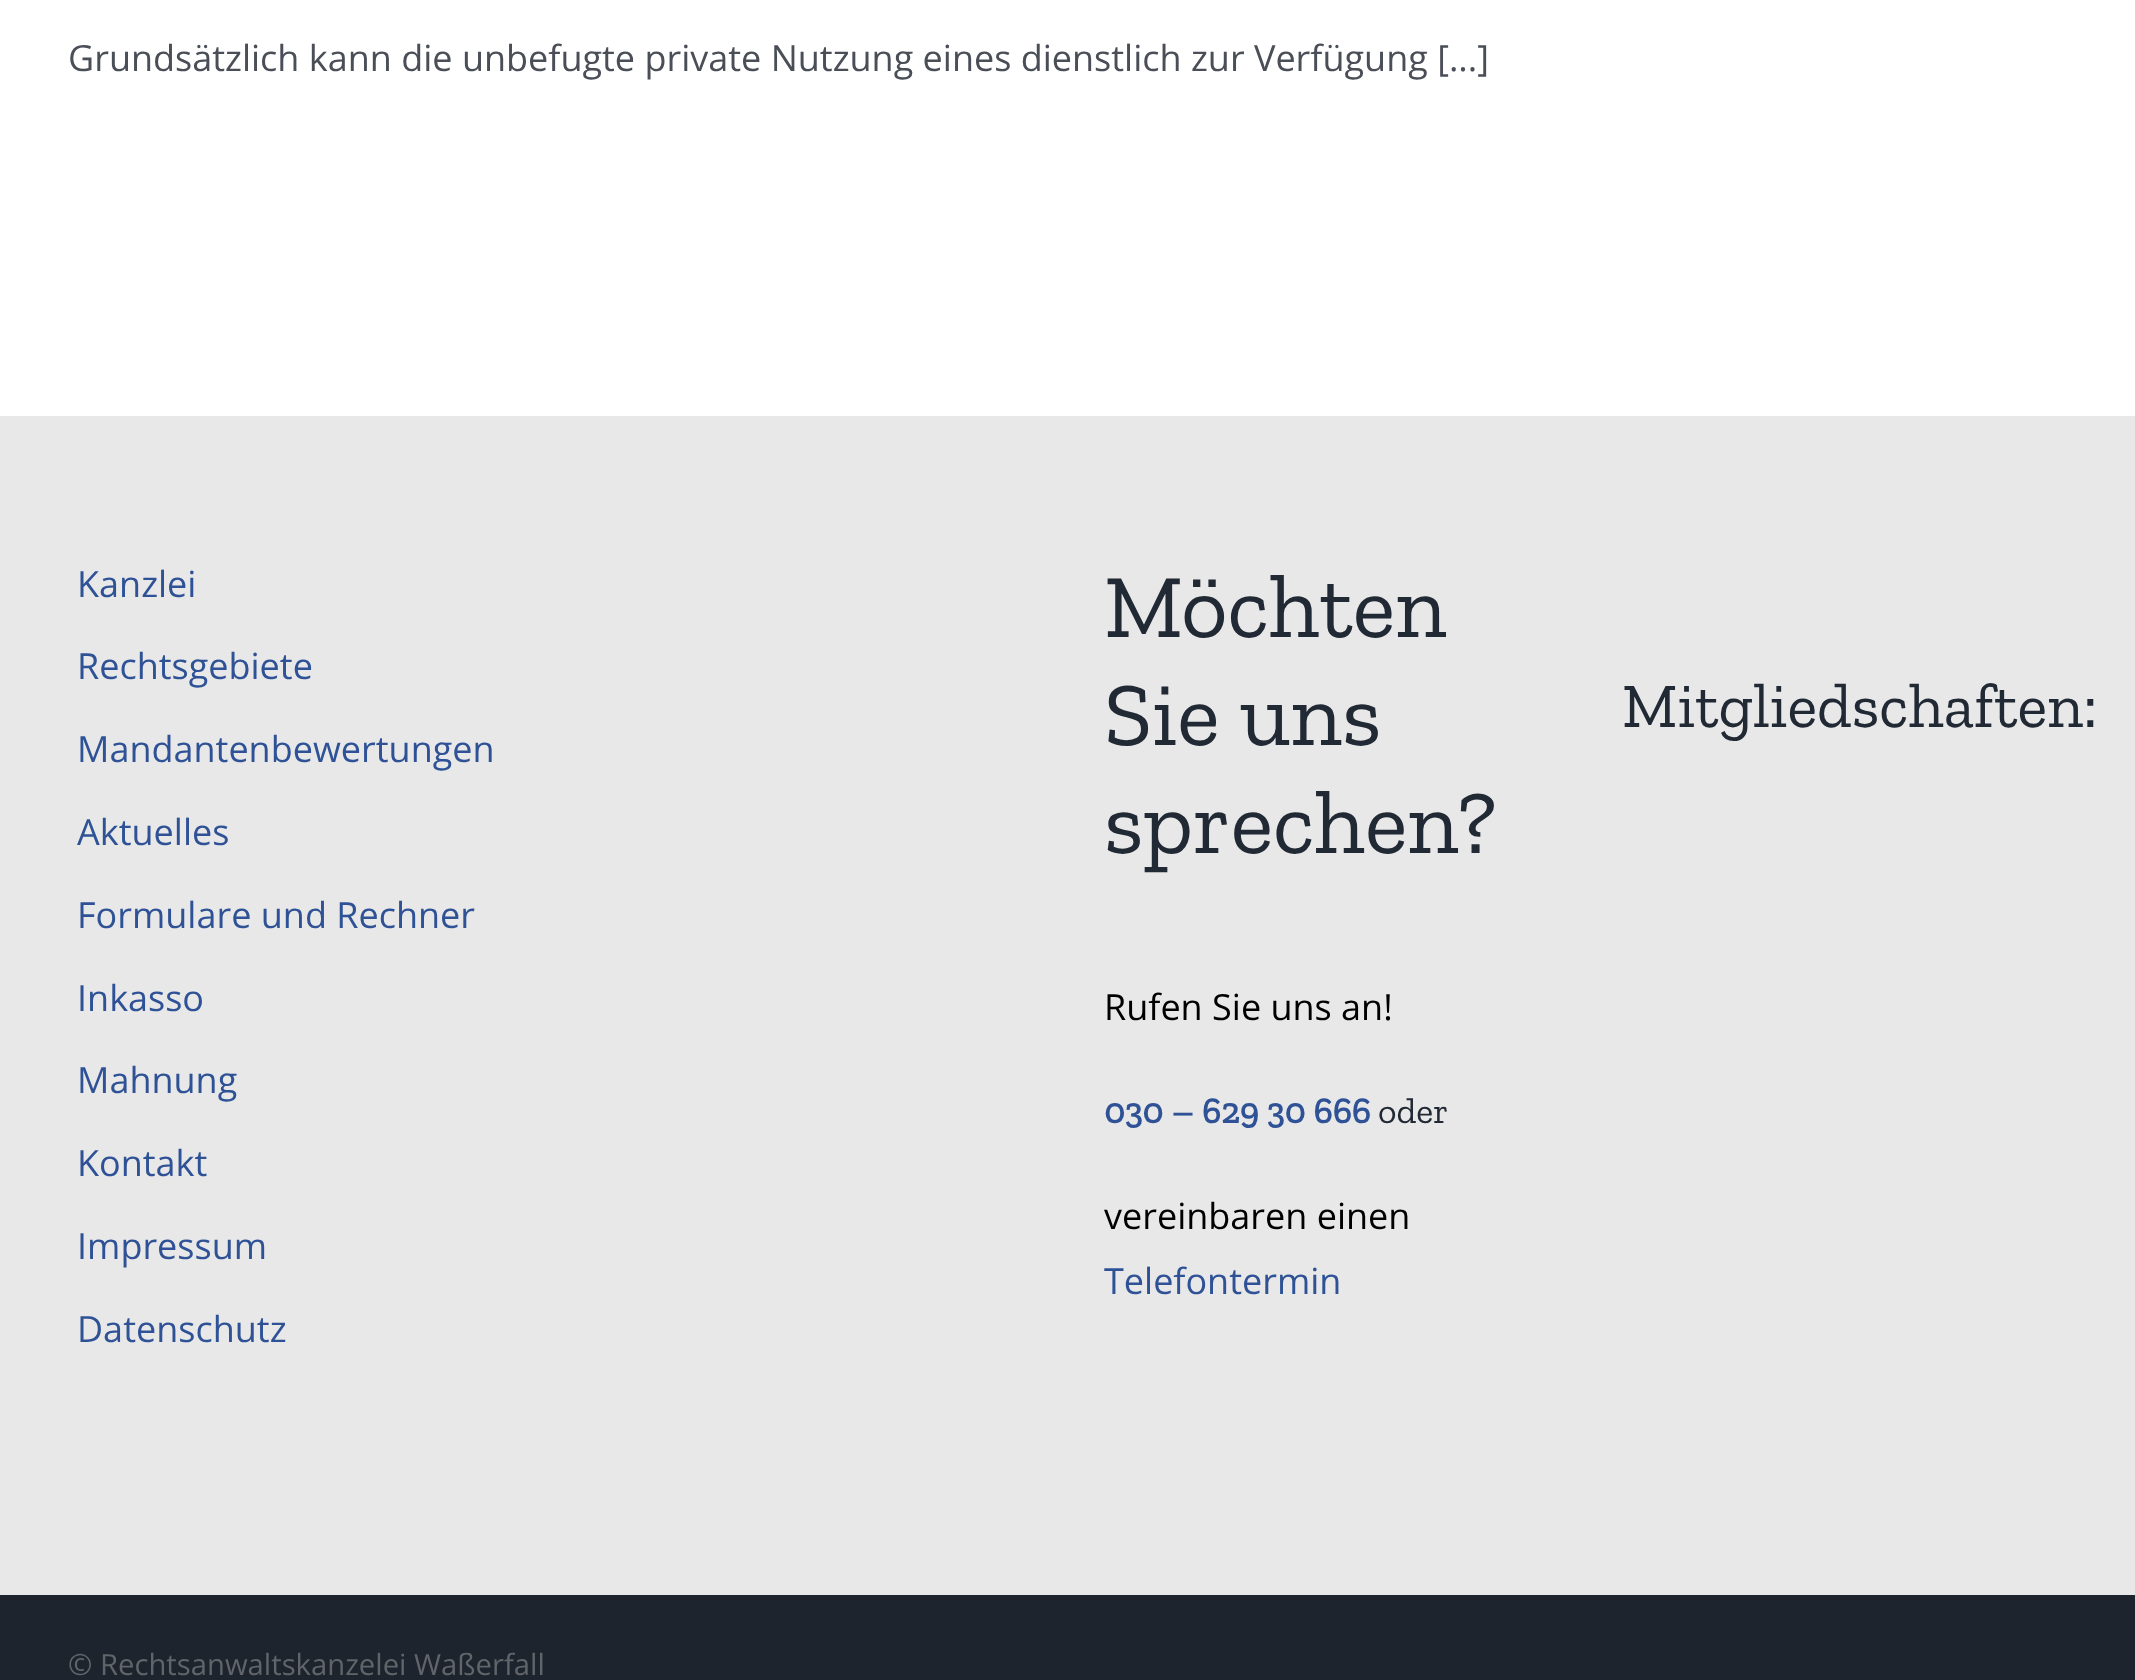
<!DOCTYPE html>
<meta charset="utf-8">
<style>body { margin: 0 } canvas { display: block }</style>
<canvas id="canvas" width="2135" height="1680"></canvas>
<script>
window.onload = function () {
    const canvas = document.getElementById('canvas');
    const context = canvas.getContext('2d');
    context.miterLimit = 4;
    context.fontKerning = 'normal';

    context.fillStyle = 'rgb(255, 255, 255)';
    context.fillRect(0, 0, 2135, 1680);
    context.fillStyle = 'rgb(232, 232, 232)';
    context.fillRect(0, 416, 2135, 1179);
    context.fillStyle = 'rgb(29, 36, 45)';
    context.fillRect(0, 1595, 2135, 85);
    context.font = '36px Open Sans';
    context.fillStyle = 'rgb(74, 78, 87)';
    context.fillText('Grundsätzlich kann die unbefugte private Nutzung eines dienstlich zur Verfügung [...]', 68, 71);
    context.fillStyle = 'rgb(47, 82, 150)';
    context.fillText('Kanzlei', 77, 597);
    context.fillText('Rechtsgebiete', 77, 679);
    context.fillText('Mandantenbewertungen', 77, 762);
    context.fillText('Aktuelles', 77, 845);
    context.fillText('Formulare und Rechner', 77, 928);
    context.fillText('Inkasso', 77, 1011);
    context.fillText('Mahnung', 77, 1093);
    context.fillText('Kontakt', 77, 1176);
    context.fillText('Impressum', 77, 1259);
    context.fillText('Datenschutz', 77, 1342);
    context.font = '90px Zilla Slab';
    context.fillStyle = 'rgb(33, 41, 52)';
    context.fillText('Möchten', 1104, 637);
    context.fillText('Sie uns', 1104, 745);
    context.fillText('sprechen?', 1104, 853);
    context.font = '36px Open Sans';
    context.fillStyle = 'rgb(0, 0, 0)';
    context.fillText('Rufen Sie uns an!', 1104, 1020);
    context.font = 'bold 36px Zilla Slab';
    context.fillStyle = 'rgb(47, 82, 150)';
    context.fillText('030 – 629 30 666', 1104, 1123);
    context.font = '36px Zilla Slab';
    context.fillStyle = 'rgb(33, 41, 52)';
    context.fillText('oder', 1378, 1123);
    context.font = '36px Open Sans';
    context.fillStyle = 'rgb(0, 0, 0)';
    context.fillText('vereinbaren einen', 1104, 1229);
    context.fillStyle = 'rgb(47, 82, 150)';
    context.fillText('Telefontermin', 1104, 1294);
    context.font = '63px Zilla Slab';
    context.fillStyle = 'rgb(33, 41, 52)';
    context.fillText('Mitgliedschaften:', 1622, 727);
    context.font = '29.25px Open Sans';
    context.fillStyle = 'rgb(97, 101, 106)';
    context.fillText('© Rechtsanwaltskanzelei Waßerfall', 68, 1675);
};
</script>
